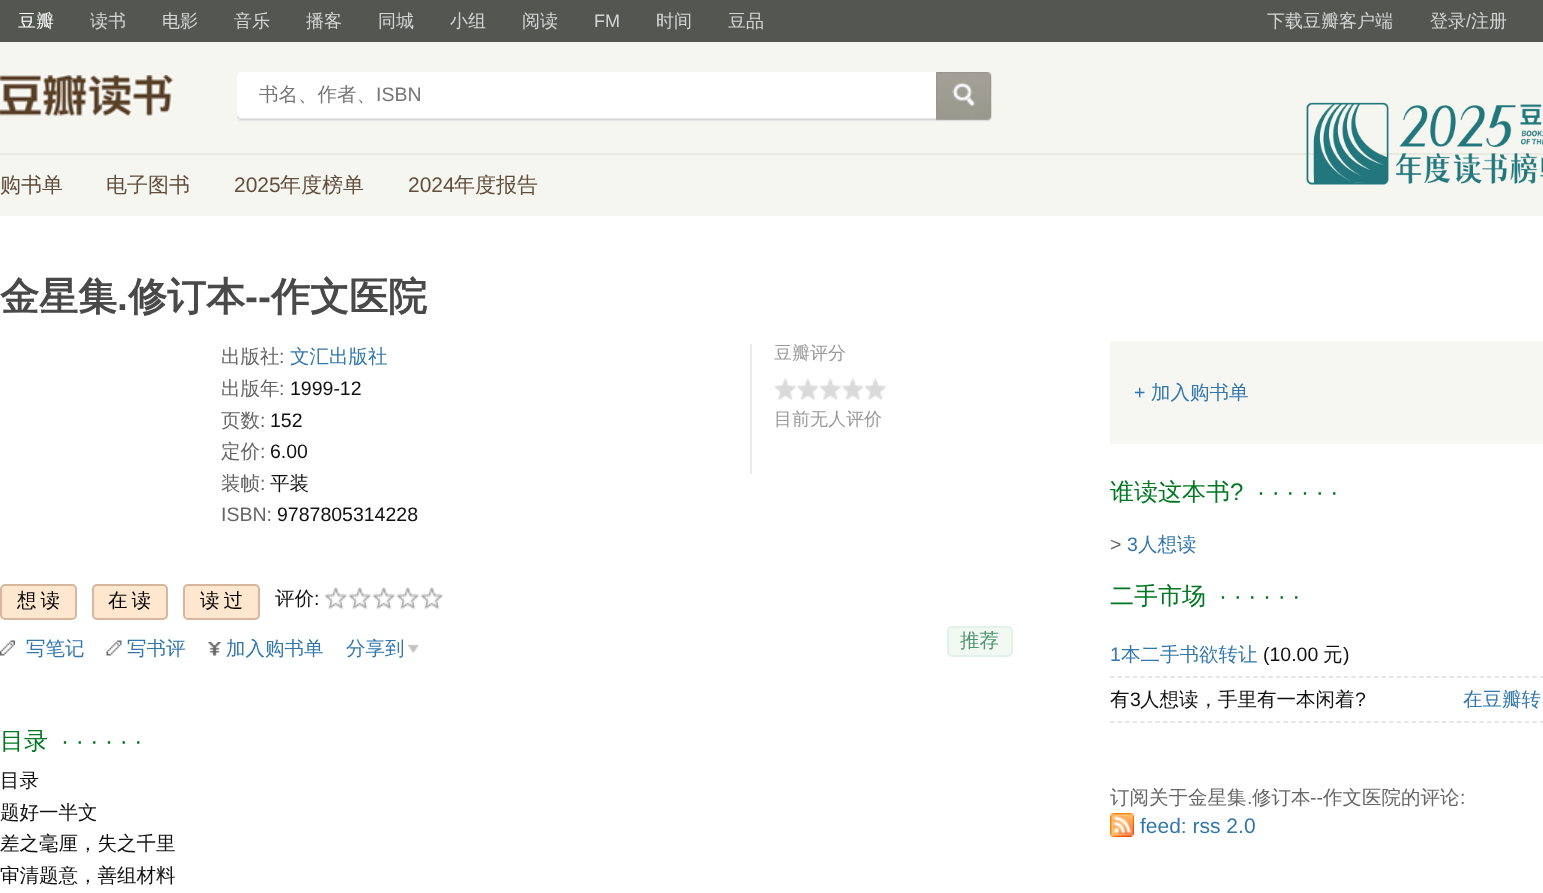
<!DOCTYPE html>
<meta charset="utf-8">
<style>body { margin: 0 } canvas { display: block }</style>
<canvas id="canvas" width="1543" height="893"></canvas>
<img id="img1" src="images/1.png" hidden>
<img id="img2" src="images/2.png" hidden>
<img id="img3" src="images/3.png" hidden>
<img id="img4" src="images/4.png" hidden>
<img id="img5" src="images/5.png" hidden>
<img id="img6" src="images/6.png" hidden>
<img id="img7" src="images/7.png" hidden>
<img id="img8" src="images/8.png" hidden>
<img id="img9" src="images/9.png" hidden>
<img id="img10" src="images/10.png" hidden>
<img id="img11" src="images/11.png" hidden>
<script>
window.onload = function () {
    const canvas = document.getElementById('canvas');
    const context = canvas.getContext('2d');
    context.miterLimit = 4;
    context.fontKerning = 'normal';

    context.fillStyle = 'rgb(255, 255, 255)';
    context.fillRect(0, 0, 1543, 893);
    context.fillStyle = 'rgb(84, 86, 82)';
    context.fillRect(0, 0, 1543, 42);
    context.fillStyle = 'rgb(246, 246, 241)';
    context.fillRect(0, 42, 1543, 174);
    context.fillStyle = 'rgb(233, 233, 226)';
    context.fillRect(0, 153, 1543, 2);
    context.drawImage(document.getElementById('img1'), 0, 75, 173, 41);
    context.drawImage(document.getElementById('img2'), 237, 72, 705, 50);
    context.drawImage(document.getElementById('img3'), 936, 72, 56, 50);
    context.drawImage(document.getElementById('img4'), 1306, 102, 237, 83);
    context.fillStyle = 'rgb(234, 234, 234)';
    context.fillRect(750, 344, 2, 130);
    context.drawImage(document.getElementById('img5'), 774, 378, 113, 23);
    context.fillStyle = 'rgb(255, 230, 206)';
    context.beginPath();
    context.roundRect(1, 585, 75, 34, 4);
    context.fill();
    context.strokeStyle = 'rgb(214, 183, 157)';
    context.lineWidth = 2;
    context.stroke();
    context.beginPath();
    context.roundRect(93, 585, 74, 34, 4);
    context.fill();
    context.stroke();
    context.beginPath();
    context.roundRect(184, 585, 75, 34, 4);
    context.fill();
    context.stroke();
    context.drawImage(document.getElementById('img6'), 324, 586, 23, 24);
    context.drawImage(document.getElementById('img6'), 348, 586, 23, 24);
    context.drawImage(document.getElementById('img6'), 372, 586, 23, 24);
    context.drawImage(document.getElementById('img6'), 396, 586, 23, 24);
    context.drawImage(document.getElementById('img6'), 420, 586, 23, 24);
    context.drawImage(document.getElementById('img7'), 0, 640, 15, 16);
    context.drawImage(document.getElementById('img8'), 106, 640, 16, 16);
    context.drawImage(document.getElementById('img9'), 208, 642, 13, 14);
    context.drawImage(document.getElementById('img10'), 408, 644, 11, 9);
    context.fillStyle = 'rgb(242, 248, 242)';
    context.beginPath();
    context.roundRect(948, 627, 64, 29, 4);
    context.fill();
    context.strokeStyle = 'rgb(227, 241, 237)';
    context.stroke();
    context.fillStyle = 'rgb(246, 246, 242)';
    context.fillRect(1110, 341, 433, 103);
    context.beginPath();
    context.moveTo(1110, 677);
    context.lineTo(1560, 677);
    context.strokeStyle = 'rgb(221, 221, 221)';
    context.lineWidth = 1.5;
    context.setLineDash([4.5, 3.04]);
    context.stroke();
    context.beginPath();
    context.moveTo(1110, 722);
    context.lineTo(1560, 722);
    context.stroke();
    context.drawImage(document.getElementById('img11'), 1110, 813, 24, 24);
    context.font = '500 18px WenQuanYi Zen Hei';
    context.fillStyle = 'rgb(255, 255, 255)';
    context.fillText('豆瓣', 18, 27);
    context.fillStyle = 'rgb(213, 213, 213)';
    context.fillText('读书', 90, 27);
    context.fillText('电影', 162, 27);
    context.fillText('音乐', 234, 27);
    context.fillText('播客', 306, 27);
    context.fillText('同城', 378, 27);
    context.fillText('小组', 450, 27);
    context.fillText('阅读', 522, 27);
    context.font = '18px Liberation Sans';
    context.fillText('FM', 594, 27);
    context.font = '500 18px WenQuanYi Zen Hei';
    context.fillText('时间', 656, 27);
    context.fillText('豆品', 728, 27);
    context.fillText('下载豆瓣客户端', 1267, 27);
    context.fillText('登录', 1430, 27);
    context.font = '18px Liberation Sans';
    context.fillText('/', 1466, 27);
    context.font = '500 18px WenQuanYi Zen Hei';
    context.fillText('注册', 1471, 27);
    context.font = '500 19.5px WenQuanYi Zen Hei';
    context.fillStyle = 'rgb(117, 117, 117)';
    context.fillText('书名、作者、', 259, 101);
    context.font = '19.5px Liberation Sans';
    context.fillText('ISBN', 376, 101);
    context.font = '500 21px WenQuanYi Zen Hei';
    context.fillStyle = 'rgb(97, 78, 60)';
    context.fillText('购书单', 0, 192);
    context.fillText('电子图书', 106, 192);
    context.font = '21px Liberation Sans';
    context.fillText('2025', 234, 192);
    context.font = '500 21px WenQuanYi Zen Hei';
    context.fillText('年度榜单', 280, 192);
    context.font = '21px Liberation Sans';
    context.fillText('2024', 408, 192);
    context.font = '500 21px WenQuanYi Zen Hei';
    context.fillText('年度报告', 454, 192);
    context.font = 'bold 39px WenQuanYi Zen Hei';
    context.fillStyle = 'rgb(73, 73, 73)';
    context.fillText('金星集', 0, 310);
    context.fillText('修订本', 128, 310);
    context.font = 'bold 39px Liberation Sans';
    context.fillText('--', 245, 310);
    context.font = 'bold 39px WenQuanYi Zen Hei';
    context.fillText('作文医院', 271, 310);
    context.font = 'bold 39px Liberation Sans';
    context.fillText('.', 117, 310);
    context.font = '500 19.5px WenQuanYi Zen Hei';
    context.fillStyle = 'rgb(102, 102, 102)';
    context.fillText('出版社', 221, 363);
    context.font = '19.5px Liberation Sans';
    context.fillText(':', 279, 363);
    context.font = '500 19.5px WenQuanYi Zen Hei';
    context.fillStyle = 'rgb(51, 119, 170)';
    context.fillText('文汇出版社', 290, 363);
    context.fillStyle = 'rgb(102, 102, 102)';
    context.fillText('出版年', 221, 395);
    context.font = '19.5px Liberation Sans';
    context.fillText(':', 279, 395);
    context.fillStyle = 'rgb(17, 17, 17)';
    context.fillText('1999-12', 290, 395);
    context.font = '500 19.5px WenQuanYi Zen Hei';
    context.fillStyle = 'rgb(102, 102, 102)';
    context.fillText('页数', 221, 427);
    context.font = '19.5px Liberation Sans';
    context.fillText(':', 260, 427);
    context.fillStyle = 'rgb(17, 17, 17)';
    context.fillText('152', 270, 427);
    context.font = '500 19.5px WenQuanYi Zen Hei';
    context.fillStyle = 'rgb(102, 102, 102)';
    context.fillText('定价', 221, 458);
    context.font = '19.5px Liberation Sans';
    context.fillText(':', 260, 458);
    context.fillStyle = 'rgb(17, 17, 17)';
    context.fillText('6.00', 270, 458);
    context.font = '500 19.5px WenQuanYi Zen Hei';
    context.fillStyle = 'rgb(102, 102, 102)';
    context.fillText('装帧', 221, 490);
    context.font = '19.5px Liberation Sans';
    context.fillText(':', 260, 490);
    context.font = '500 19.5px WenQuanYi Zen Hei';
    context.fillStyle = 'rgb(17, 17, 17)';
    context.fillText('平装', 270, 490);
    context.font = '19.5px Liberation Sans';
    context.fillStyle = 'rgb(102, 102, 102)';
    context.fillText('ISBN:', 221, 521);
    context.fillStyle = 'rgb(17, 17, 17)';
    context.fillText('9787805314228', 277, 521);
    context.font = '500 18px WenQuanYi Zen Hei';
    context.fillStyle = 'rgb(155, 155, 155)';
    context.fillText('豆瓣评分', 774, 359);
    context.fillText('目前无人评价', 774, 425);
    context.letterSpacing = '4px';
    context.font = '500 19.5px WenQuanYi Zen Hei';
    context.fillStyle = 'rgb(0, 0, 0)';
    context.fillText('想读', 17, 607);
    context.fillText('在读', 108, 607);
    context.fillText('读过', 200, 607);
    context.letterSpacing = '0px';
    context.fillStyle = 'rgb(17, 17, 17)';
    context.fillText('评价', 275, 605);
    context.font = '19.5px Liberation Sans';
    context.fillText(':', 314, 605);
    context.font = '500 19.5px WenQuanYi Zen Hei';
    context.fillStyle = 'rgb(51, 119, 170)';
    context.fillText('写笔记', 26, 655);
    context.fillText('写书评', 127, 655);
    context.fillText('加入购书单', 226, 655);
    context.fillText('分享到', 346, 655);
    context.fillStyle = 'rgb(79, 148, 110)';
    context.fillText('推荐', 960, 647);
    context.font = '500 24px WenQuanYi Zen Hei';
    context.fillStyle = 'rgb(0, 119, 34)';
    context.fillText('目录', 0, 749);
    context.font = '24px Liberation Sans';
    context.fillText('· · · · · ·', 61, 749);
    context.font = '500 19.5px WenQuanYi Zen Hei';
    context.fillStyle = 'rgb(17, 17, 17)';
    context.fillText('目录', 0, 787);
    context.fillText('题好一半文', 0, 819);
    context.fillText('差之毫厘，失之千里', 0, 850);
    context.fillText('审清题意，善组材料', 0, 882);
    context.font = '19.5px Liberation Sans';
    context.fillStyle = 'rgb(51, 119, 170)';
    context.fillText('+', 1134, 399);
    context.font = '500 19.5px WenQuanYi Zen Hei';
    context.fillText('加入购书单', 1151, 399);
    context.font = '500 24px WenQuanYi Zen Hei';
    context.fillStyle = 'rgb(0, 119, 34)';
    context.fillText('谁读这本书', 1110, 500);
    context.font = '24px Liberation Sans';
    context.fillText('?', 1230, 500);
    context.fillText('· · · · · ·', 1257, 500);
    context.font = '19.5px Liberation Sans';
    context.fillStyle = 'rgb(102, 102, 102)';
    context.fillText('>', 1110, 551);
    context.fillStyle = 'rgb(51, 119, 170)';
    context.fillText('3', 1127, 551);
    context.font = '500 19.5px WenQuanYi Zen Hei';
    context.fillText('人想读', 1138, 551);
    context.font = '500 24px WenQuanYi Zen Hei';
    context.fillStyle = 'rgb(0, 119, 34)';
    context.fillText('二手市场', 1110, 604);
    context.font = '24px Liberation Sans';
    context.fillText('· · · · · ·', 1219, 604);
    context.font = '19.5px Liberation Sans';
    context.fillStyle = 'rgb(51, 119, 170)';
    context.fillText('1', 1110, 661);
    context.font = '500 19.5px WenQuanYi Zen Hei';
    context.fillText('本二手书欲转让', 1121, 661);
    context.font = '19.5px Liberation Sans';
    context.fillStyle = 'rgb(17, 17, 17)';
    context.fillText('(10.00', 1263, 661);
    context.font = '500 19.5px WenQuanYi Zen Hei';
    context.fillText('元', 1323, 661);
    context.font = '19.5px Liberation Sans';
    context.fillText(')', 1343, 661);
    context.font = '500 19.5px WenQuanYi Zen Hei';
    context.fillText('有', 1110, 706);
    context.font = '19.5px Liberation Sans';
    context.fillText('3', 1130, 706);
    context.font = '500 19.5px WenQuanYi Zen Hei';
    context.fillText('人想读，手里有一本闲着', 1140, 706);
    context.font = '19.5px Liberation Sans';
    context.fillText('?', 1355, 706);
    context.font = '500 19.5px WenQuanYi Zen Hei';
    context.fillStyle = 'rgb(51, 119, 170)';
    context.fillText('在豆瓣转', 1463, 706);
    context.fillStyle = 'rgb(102, 102, 102)';
    context.fillText('订阅关于金星集', 1110, 804);
    context.fillText('修订本', 1252, 804);
    context.font = '19.5px Liberation Sans';
    context.fillText('--', 1310, 804);
    context.font = '500 19.5px WenQuanYi Zen Hei';
    context.fillText('作文医院的评论', 1323, 804);
    context.font = '19.5px Liberation Sans';
    context.fillText(':', 1460, 804);
    context.fillText('.', 1247, 804);
    context.font = '21px Liberation Sans';
    context.fillStyle = 'rgb(51, 119, 170)';
    context.fillText('feed: rss 2.0', 1140, 833);
};
</script>
